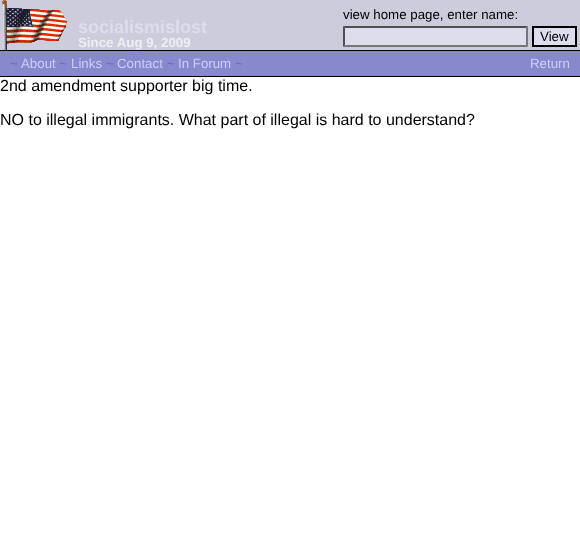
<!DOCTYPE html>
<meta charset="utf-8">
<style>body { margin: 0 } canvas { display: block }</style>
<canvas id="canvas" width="580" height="542"></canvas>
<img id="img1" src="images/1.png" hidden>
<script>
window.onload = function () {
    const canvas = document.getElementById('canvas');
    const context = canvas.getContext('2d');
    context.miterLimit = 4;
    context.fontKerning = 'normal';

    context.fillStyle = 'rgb(255, 255, 255)';
    context.fillRect(0, 0, 580, 542);
    context.fillStyle = 'rgb(204, 204, 221)';
    context.fillRect(0, 0, 580, 50);
    context.drawImage(document.getElementById('img1'), 2, 0, 65, 50);
    context.fillStyle = 'rgb(221, 221, 238)';
    context.fillRect(343, 26, 185, 21);
    context.fillStyle = 'rgb(79, 79, 79)';
    context.beginPath();
    context.moveTo(343, 26);
    context.lineTo(528, 26);
    context.lineTo(526, 28);
    context.lineTo(345, 28);
    context.closePath();
    context.fill();
    context.fillStyle = 'rgb(118, 118, 118)';
    context.beginPath();
    context.moveTo(528, 26);
    context.lineTo(528, 47);
    context.lineTo(526, 45);
    context.lineTo(526, 28);
    context.closePath();
    context.fill();
    context.beginPath();
    context.moveTo(528, 47);
    context.lineTo(343, 47);
    context.lineTo(345, 45);
    context.lineTo(526, 45);
    context.closePath();
    context.fill();
    context.fillStyle = 'rgb(79, 79, 79)';
    context.beginPath();
    context.moveTo(343, 47);
    context.lineTo(343, 26);
    context.lineTo(345, 28);
    context.lineTo(345, 45);
    context.closePath();
    context.fill();
    context.fillStyle = 'rgb(221, 221, 238)';
    context.beginPath();
    context.rect(533, 27, 43, 19);
    context.fill();
    context.strokeStyle = 'rgb(0, 0, 0)';
    context.lineWidth = 2;
    context.stroke();
    context.fillStyle = 'rgb(136, 136, 204)';
    context.fillRect(0, 51, 580, 25);
    context.fillStyle = 'rgb(0, 0, 0)';
    context.fillRect(0, 50, 580, 1);
    context.fillRect(0, 76, 580, 1);
    context.font = 'bold 18px Liberation Sans';
    context.fillStyle = 'rgb(221, 221, 238)';
    context.fillText('socialismislost', 78, 33);
    context.font = 'bold 13.3px Liberation Sans';
    context.fillStyle = 'rgb(238, 238, 238)';
    context.fillText('Since Aug 9, 2009', 78, 47);
    context.font = '13.3px Liberation Sans';
    context.fillStyle = 'rgb(0, 0, 0)';
    context.fillText('view home page, enter name:', 343, 19);
    context.fillText('View', 540, 41);
    context.fillStyle = 'rgb(102, 102, 221)';
    context.fillText('~', 10, 68);
    context.fillStyle = 'rgb(204, 204, 255)';
    context.fillText('About', 21, 68);
    context.fillStyle = 'rgb(102, 102, 221)';
    context.fillText('~', 59, 68);
    context.fillStyle = 'rgb(204, 204, 255)';
    context.fillText('Links', 71, 68);
    context.fillStyle = 'rgb(102, 102, 221)';
    context.fillText('~', 106, 68);
    context.fillStyle = 'rgb(204, 204, 255)';
    context.fillText('Contact', 117, 68);
    context.fillStyle = 'rgb(102, 102, 221)';
    context.fillText('~', 167, 68);
    context.fillStyle = 'rgb(204, 204, 255)';
    context.fillText('In Forum', 178, 68);
    context.fillStyle = 'rgb(102, 102, 221)';
    context.fillText('~', 235, 68);
    context.fillStyle = 'rgb(204, 204, 255)';
    context.fillText('Return', 530, 68);
    context.font = '16px Liberation Sans';
    context.fillStyle = 'rgb(0, 0, 0)';
    context.fillText('2nd amendment supporter big time.', 0, 91);
    context.fillText('NO to illegal immigrants. What part of illegal is hard to understand?', 0, 125);
};
</script>
